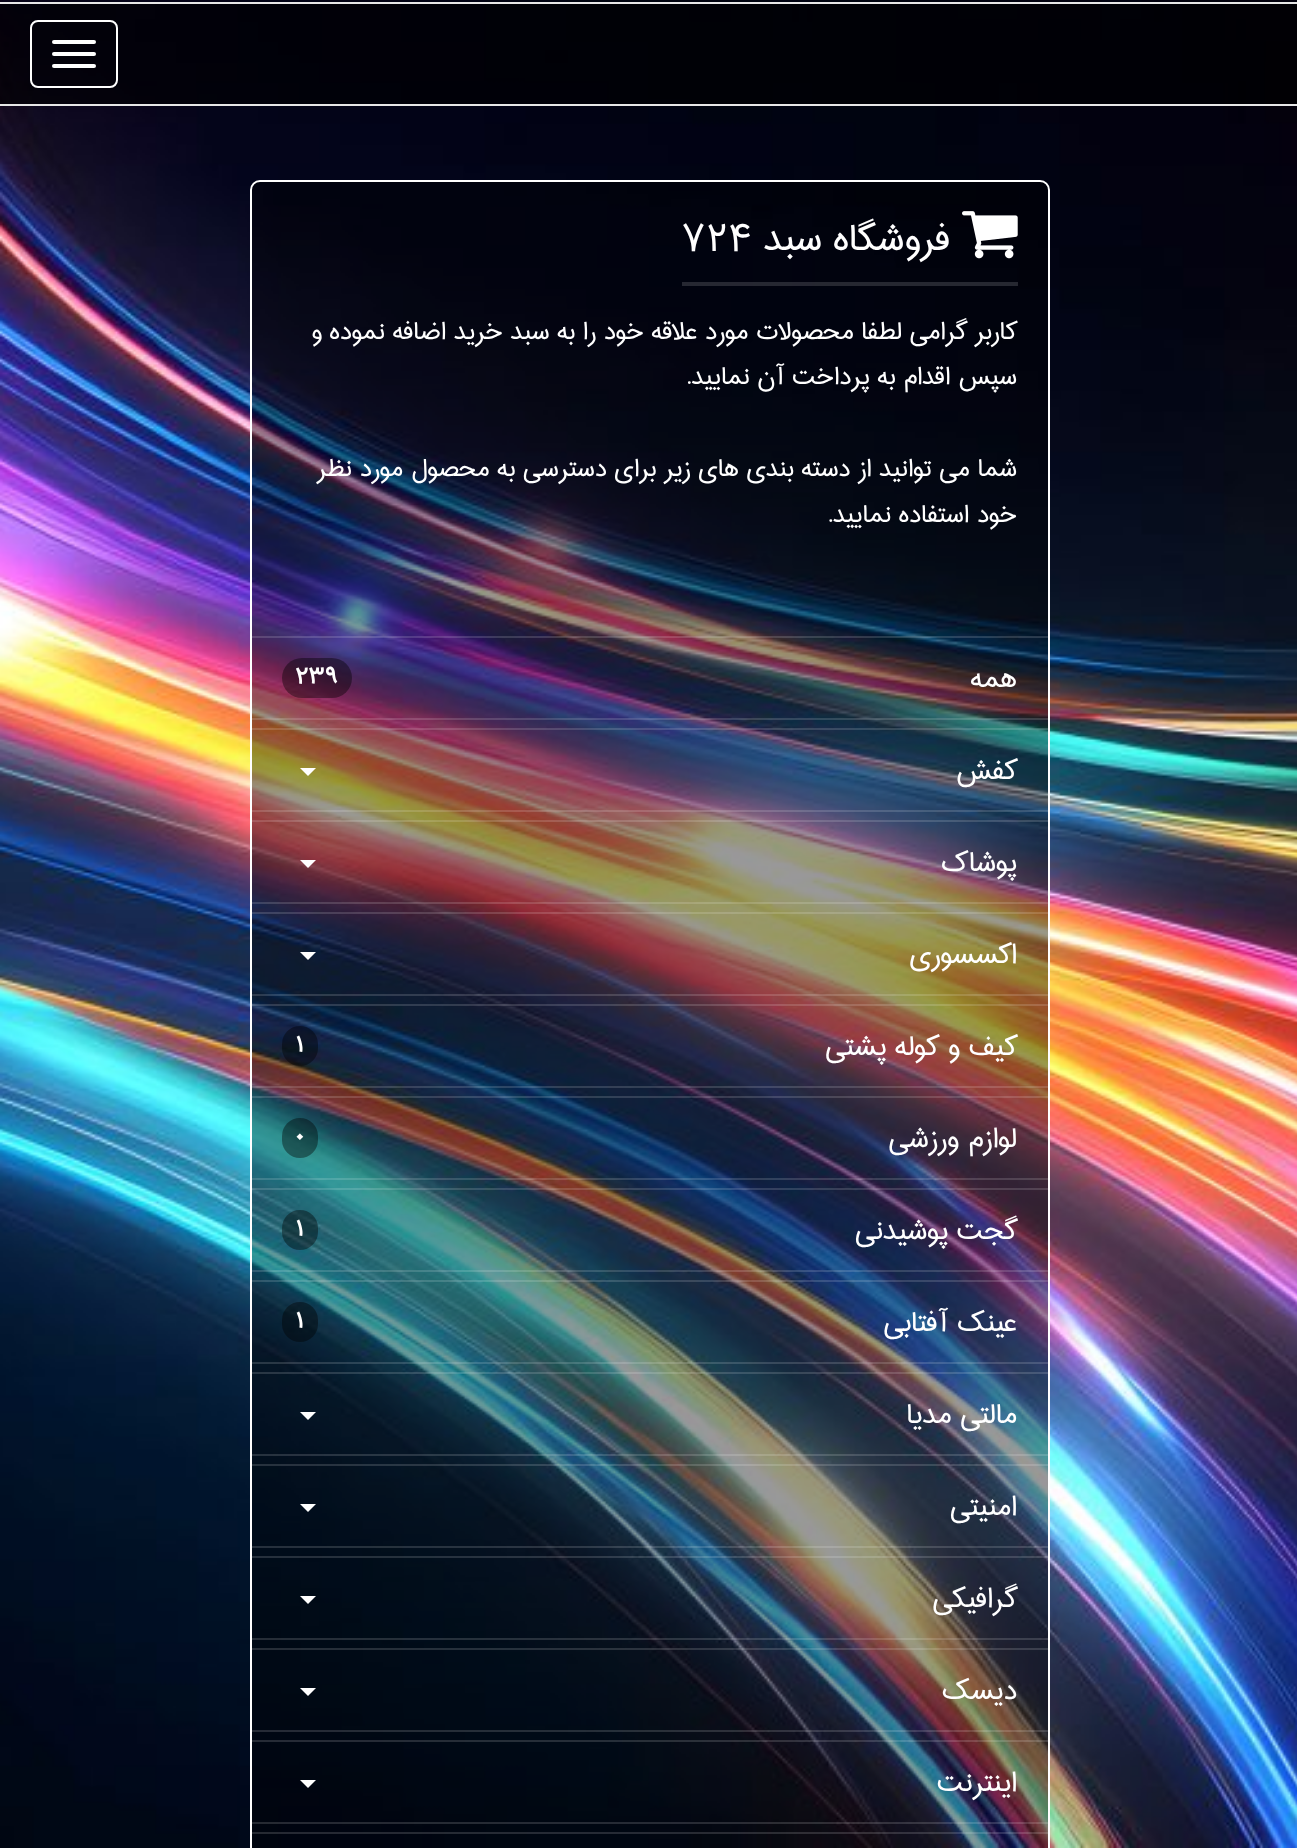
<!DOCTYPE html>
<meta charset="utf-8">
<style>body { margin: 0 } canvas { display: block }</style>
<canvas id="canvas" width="1297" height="1848"></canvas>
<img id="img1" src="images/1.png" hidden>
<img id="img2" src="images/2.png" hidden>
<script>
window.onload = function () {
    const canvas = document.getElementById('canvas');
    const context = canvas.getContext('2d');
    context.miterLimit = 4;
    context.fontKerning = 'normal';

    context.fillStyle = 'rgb(255, 255, 255)';
    context.fillRect(0, 0, 1297, 1848);
    context.drawImage(document.getElementById('img1'), 0, 0, 1297, 1848);
    context.fillStyle = 'rgba(0, 0, 0, 0.6)';
    context.fillRect(0, 4, 1297, 100);
    context.fillStyle = 'rgb(231, 231, 231)';
    context.fillRect(0, 2, 1297, 2);
    context.fillRect(0, 104, 1297, 2);
    context.beginPath();
    context.roundRect(31, 21, 86, 66, 7);
    context.strokeStyle = 'rgb(255, 255, 255)';
    context.lineWidth = 2;
    context.stroke();
    context.fillStyle = 'rgb(255, 255, 255)';
    context.beginPath();
    context.roundRect(52, 40, 44, 4, 2);
    context.fill();
    context.beginPath();
    context.roundRect(52, 52, 44, 4, 2);
    context.fill();
    context.beginPath();
    context.roundRect(52, 64, 44, 4, 2);
    context.fill();
    context.fillStyle = 'rgba(0, 0, 0, 0.4)';
    context.beginPath();
    context.roundRect(251, 181, 798, 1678, 9);
    context.fill();
    context.stroke();
    context.fillStyle = 'rgba(255, 255, 255, 0.15)';
    context.fillRect(682, 282, 336, 4);
    context.drawImage(document.getElementById('img2'), 962, 211, 56, 48);
    context.fillRect(252, 636, 796, 2);
    context.fillRect(252, 718, 796, 2);
    context.fillStyle = 'rgba(0, 0, 0, 0.4)';
    context.beginPath();
    context.roundRect(282, 658, 70, 40, 20);
    context.fill();
    context.fillStyle = 'rgba(255, 255, 255, 0.15)';
    context.fillRect(252, 728, 796, 2);
    context.fillRect(252, 810, 796, 2);
    context.fillStyle = 'rgb(255, 255, 255)';
    context.beginPath();
    context.moveTo(300, 768);
    context.lineTo(316, 768);
    context.lineTo(308, 776);
    context.closePath();
    context.fill();
    context.fillStyle = 'rgba(255, 255, 255, 0.15)';
    context.fillRect(252, 820, 796, 2);
    context.fillRect(252, 902, 796, 2);
    context.fillStyle = 'rgb(255, 255, 255)';
    context.beginPath();
    context.moveTo(300, 860);
    context.lineTo(316, 860);
    context.lineTo(308, 868);
    context.closePath();
    context.fill();
    context.fillStyle = 'rgba(255, 255, 255, 0.15)';
    context.fillRect(252, 912, 796, 2);
    context.fillRect(252, 994, 796, 2);
    context.fillStyle = 'rgb(255, 255, 255)';
    context.beginPath();
    context.moveTo(300, 952);
    context.lineTo(316, 952);
    context.lineTo(308, 960);
    context.closePath();
    context.fill();
    context.fillStyle = 'rgba(255, 255, 255, 0.15)';
    context.fillRect(252, 1004, 796, 2);
    context.fillRect(252, 1086, 796, 2);
    context.fillStyle = 'rgba(0, 0, 0, 0.4)';
    context.beginPath();
    context.roundRect(282, 1026, 36, 40, 18);
    context.fill();
    context.fillStyle = 'rgba(255, 255, 255, 0.15)';
    context.fillRect(252, 1096, 796, 2);
    context.fillRect(252, 1178, 796, 2);
    context.fillStyle = 'rgba(0, 0, 0, 0.4)';
    context.beginPath();
    context.roundRect(282, 1118, 36, 40, 18);
    context.fill();
    context.fillStyle = 'rgba(255, 255, 255, 0.15)';
    context.fillRect(252, 1188, 796, 2);
    context.fillRect(252, 1270, 796, 2);
    context.fillStyle = 'rgba(0, 0, 0, 0.4)';
    context.beginPath();
    context.roundRect(282, 1210, 36, 40, 18);
    context.fill();
    context.fillStyle = 'rgba(255, 255, 255, 0.15)';
    context.fillRect(252, 1280, 796, 2);
    context.fillRect(252, 1362, 796, 2);
    context.fillStyle = 'rgba(0, 0, 0, 0.4)';
    context.beginPath();
    context.roundRect(282, 1302, 36, 40, 18);
    context.fill();
    context.fillStyle = 'rgba(255, 255, 255, 0.15)';
    context.fillRect(252, 1372, 796, 2);
    context.fillRect(252, 1454, 796, 2);
    context.fillStyle = 'rgb(255, 255, 255)';
    context.beginPath();
    context.moveTo(300, 1412);
    context.lineTo(316, 1412);
    context.lineTo(308, 1420);
    context.closePath();
    context.fill();
    context.fillStyle = 'rgba(255, 255, 255, 0.15)';
    context.fillRect(252, 1464, 796, 2);
    context.fillRect(252, 1546, 796, 2);
    context.fillStyle = 'rgb(255, 255, 255)';
    context.beginPath();
    context.moveTo(300, 1504);
    context.lineTo(316, 1504);
    context.lineTo(308, 1512);
    context.closePath();
    context.fill();
    context.fillStyle = 'rgba(255, 255, 255, 0.15)';
    context.fillRect(252, 1556, 796, 2);
    context.fillRect(252, 1638, 796, 2);
    context.fillStyle = 'rgb(255, 255, 255)';
    context.beginPath();
    context.moveTo(300, 1596);
    context.lineTo(316, 1596);
    context.lineTo(308, 1604);
    context.closePath();
    context.fill();
    context.fillStyle = 'rgba(255, 255, 255, 0.15)';
    context.fillRect(252, 1648, 796, 2);
    context.fillRect(252, 1730, 796, 2);
    context.fillStyle = 'rgb(255, 255, 255)';
    context.beginPath();
    context.moveTo(300, 1688);
    context.lineTo(316, 1688);
    context.lineTo(308, 1696);
    context.closePath();
    context.fill();
    context.fillStyle = 'rgba(255, 255, 255, 0.15)';
    context.fillRect(252, 1740, 796, 2);
    context.fillRect(252, 1822, 796, 2);
    context.fillStyle = 'rgb(255, 255, 255)';
    context.beginPath();
    context.moveTo(300, 1780);
    context.lineTo(316, 1780);
    context.lineTo(308, 1788);
    context.closePath();
    context.fill();
    context.fillStyle = 'rgba(255, 255, 255, 0.15)';
    context.fillRect(252, 1832, 796, 2);
    context.direction = 'rtl';
    context.font = '48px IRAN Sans';
    context.fillStyle = 'rgb(255, 255, 255)';
    context.fillText('فروشگاه سبد', 950, 250);
    context.direction = 'ltr';
    context.fillText('724', 682, 250);
    context.direction = 'rtl';
    context.font = '32px IRAN Sans';
    context.fillText('کاربر گرامی لطفا محصولات مورد علاقه خود را', 1017, 339);
    context.fillText('به سبد خرید اضافه نموده و', 575, 339);
    context.fillText('سپس اقدام به پرداخت آن نمایید.', 1017, 384);
    context.fillText('شما می توانید از دسته بندی های زیر برای دسترسی به محصول مورد نظر', 1017, 476);
    context.fillText('خود', 1017, 522);
    context.fillText('استفاده نمایید.', 969, 522);
    context.font = '36px IRAN Sans';
    context.fillText('همه', 1017, 687);
    context.direction = 'ltr';
    context.font = 'bold 28px IRAN Sans';
    context.fillText('239', 295, 683);
    context.direction = 'rtl';
    context.font = '36px IRAN Sans';
    context.fillText('کفش', 1017, 779);
    context.fillText('پوشاک', 1017, 871);
    context.fillText('اکسسوری', 1017, 963);
    context.fillText('کیف و کوله پشتی', 1017, 1055);
    context.direction = 'ltr';
    context.font = 'bold 28px IRAN Sans';
    context.fillText('1', 295, 1051);
    context.direction = 'rtl';
    context.font = '36px IRAN Sans';
    context.fillText('لوازم ورزشی', 1017, 1147);
    context.direction = 'ltr';
    context.font = 'bold 28px IRAN Sans';
    context.fillText('0', 295, 1143);
    context.direction = 'rtl';
    context.font = '36px IRAN Sans';
    context.fillText('گجت پوشیدنی', 1017, 1239);
    context.direction = 'ltr';
    context.font = 'bold 28px IRAN Sans';
    context.fillText('1', 295, 1235);
    context.direction = 'rtl';
    context.font = '36px IRAN Sans';
    context.fillText('عینک آفتابی', 1017, 1331);
    context.direction = 'ltr';
    context.font = 'bold 28px IRAN Sans';
    context.fillText('1', 295, 1327);
    context.direction = 'rtl';
    context.font = '36px IRAN Sans';
    context.fillText('مالتی مدیا', 1017, 1423);
    context.fillText('امنیتی', 1017, 1515);
    context.fillText('گرافیکی', 1017, 1607);
    context.fillText('دیسک', 1017, 1699);
    context.fillText('اینترنت', 1017, 1791);
};
</script>
